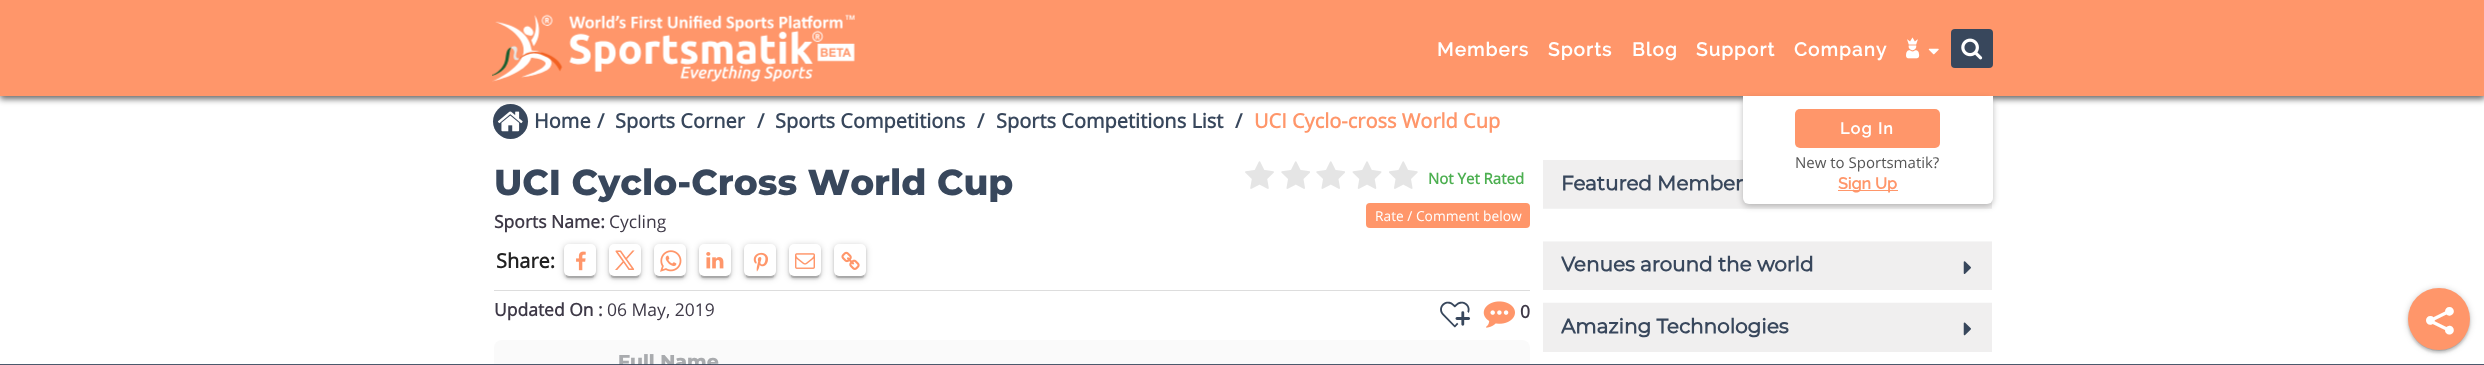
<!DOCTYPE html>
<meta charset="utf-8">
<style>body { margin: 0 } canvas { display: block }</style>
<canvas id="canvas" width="2484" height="365"></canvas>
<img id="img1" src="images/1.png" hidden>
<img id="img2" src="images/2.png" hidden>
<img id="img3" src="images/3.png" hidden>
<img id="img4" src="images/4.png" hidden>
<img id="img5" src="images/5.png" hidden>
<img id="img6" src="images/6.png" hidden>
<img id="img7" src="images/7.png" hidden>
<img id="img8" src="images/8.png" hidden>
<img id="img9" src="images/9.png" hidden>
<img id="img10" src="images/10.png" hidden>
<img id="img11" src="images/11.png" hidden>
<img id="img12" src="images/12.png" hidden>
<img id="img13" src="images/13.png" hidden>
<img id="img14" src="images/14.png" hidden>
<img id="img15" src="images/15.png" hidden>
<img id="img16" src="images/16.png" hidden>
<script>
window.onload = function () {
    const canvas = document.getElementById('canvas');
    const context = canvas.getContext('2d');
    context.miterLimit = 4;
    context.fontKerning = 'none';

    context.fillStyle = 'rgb(255, 255, 255)';
    context.fillRect(0, 0, 2484, 365);
    context.fillStyle = 'rgb(56, 71, 92)';
    context.beginPath();
    context.arc(510.5, 121.5, 17.5, 0, 2 * Math.PI);
    context.fill();
    context.drawImage(document.getElementById('img1'), 497, 111, 26, 21);
    context.fillStyle = 'rgba(0, 0, 0, 0.2)';
    context.filter = 'blur(3px)';
    context.beginPath();
    context.roundRect(564, 245, 32, 33, 5);
    context.fill();
    context.filter = 'none';
    context.fillStyle = 'rgba(0, 0, 0, 0.12)';
    context.filter = 'blur(0.5px)';
    context.beginPath();
    context.roundRect(566, 250, 28, 28, 2.5);
    context.fill();
    context.filter = 'none';
    context.fillStyle = 'rgba(0, 0, 0, 0.14)';
    context.filter = 'blur(1px)';
    context.beginPath();
    context.roundRect(564, 246, 32, 33, 5);
    context.fill();
    context.filter = 'none';
    context.fillStyle = 'rgb(255, 255, 255)';
    context.beginPath();
    context.roundRect(564, 244, 32, 32, 5);
    context.fill();
    context.drawImage(document.getElementById('img2'), 576, 251, 10, 20);
    context.fillStyle = 'rgba(0, 0, 0, 0.2)';
    context.filter = 'blur(3px)';
    context.beginPath();
    context.roundRect(609, 245, 32, 33, 5);
    context.fill();
    context.filter = 'none';
    context.fillStyle = 'rgba(0, 0, 0, 0.12)';
    context.filter = 'blur(0.5px)';
    context.beginPath();
    context.roundRect(611, 250, 28, 28, 2.5);
    context.fill();
    context.filter = 'none';
    context.fillStyle = 'rgba(0, 0, 0, 0.14)';
    context.filter = 'blur(1px)';
    context.beginPath();
    context.roundRect(609, 246, 32, 33, 5);
    context.fill();
    context.filter = 'none';
    context.fillStyle = 'rgb(255, 255, 255)';
    context.beginPath();
    context.roundRect(609, 244, 32, 32, 5);
    context.fill();
    context.fillStyle = 'rgba(0, 0, 0, 0.2)';
    context.filter = 'blur(3px)';
    context.beginPath();
    context.roundRect(654, 245, 32, 33, 5);
    context.fill();
    context.filter = 'none';
    context.fillStyle = 'rgba(0, 0, 0, 0.12)';
    context.filter = 'blur(0.5px)';
    context.beginPath();
    context.roundRect(656, 250, 28, 28, 2.5);
    context.fill();
    context.filter = 'none';
    context.fillStyle = 'rgba(0, 0, 0, 0.14)';
    context.filter = 'blur(1px)';
    context.beginPath();
    context.roundRect(654, 246, 32, 33, 5);
    context.fill();
    context.filter = 'none';
    context.fillStyle = 'rgb(255, 255, 255)';
    context.beginPath();
    context.roundRect(654, 244, 32, 32, 5);
    context.fill();
    context.drawImage(document.getElementById('img3'), 660, 250, 22, 22);
    context.fillStyle = 'rgba(0, 0, 0, 0.2)';
    context.filter = 'blur(3px)';
    context.beginPath();
    context.roundRect(699, 245, 32, 33, 5);
    context.fill();
    context.filter = 'none';
    context.fillStyle = 'rgba(0, 0, 0, 0.12)';
    context.filter = 'blur(0.5px)';
    context.beginPath();
    context.roundRect(701, 250, 28, 28, 2.5);
    context.fill();
    context.filter = 'none';
    context.fillStyle = 'rgba(0, 0, 0, 0.14)';
    context.filter = 'blur(1px)';
    context.beginPath();
    context.roundRect(699, 246, 32, 33, 5);
    context.fill();
    context.filter = 'none';
    context.fillStyle = 'rgb(255, 255, 255)';
    context.beginPath();
    context.roundRect(699, 244, 32, 32, 5);
    context.fill();
    context.drawImage(document.getElementById('img4'), 706, 252, 18, 17);
    context.fillStyle = 'rgba(0, 0, 0, 0.2)';
    context.filter = 'blur(3px)';
    context.beginPath();
    context.roundRect(744, 245, 32, 33, 5);
    context.fill();
    context.filter = 'none';
    context.fillStyle = 'rgba(0, 0, 0, 0.12)';
    context.filter = 'blur(0.5px)';
    context.beginPath();
    context.roundRect(746, 250, 28, 28, 2.5);
    context.fill();
    context.filter = 'none';
    context.fillStyle = 'rgba(0, 0, 0, 0.14)';
    context.filter = 'blur(1px)';
    context.beginPath();
    context.roundRect(744, 246, 32, 33, 5);
    context.fill();
    context.filter = 'none';
    context.fillStyle = 'rgb(255, 255, 255)';
    context.beginPath();
    context.roundRect(744, 244, 32, 32, 5);
    context.fill();
    context.drawImage(document.getElementById('img5'), 753, 252, 15, 20);
    context.fillStyle = 'rgba(0, 0, 0, 0.2)';
    context.filter = 'blur(3px)';
    context.beginPath();
    context.roundRect(789, 245, 32, 33, 5);
    context.fill();
    context.filter = 'none';
    context.fillStyle = 'rgba(0, 0, 0, 0.12)';
    context.filter = 'blur(0.5px)';
    context.beginPath();
    context.roundRect(791, 250, 28, 28, 2.5);
    context.fill();
    context.filter = 'none';
    context.fillStyle = 'rgba(0, 0, 0, 0.14)';
    context.filter = 'blur(1px)';
    context.beginPath();
    context.roundRect(789, 246, 32, 33, 5);
    context.fill();
    context.filter = 'none';
    context.fillStyle = 'rgb(255, 255, 255)';
    context.beginPath();
    context.roundRect(789, 244, 32, 32, 5);
    context.fill();
    context.drawImage(document.getElementById('img6'), 795, 253, 20, 16);
    context.fillStyle = 'rgba(0, 0, 0, 0.2)';
    context.filter = 'blur(3px)';
    context.beginPath();
    context.roundRect(834, 245, 32, 33, 5);
    context.fill();
    context.filter = 'none';
    context.fillStyle = 'rgba(0, 0, 0, 0.12)';
    context.filter = 'blur(0.5px)';
    context.beginPath();
    context.roundRect(836, 250, 28, 28, 2.5);
    context.fill();
    context.filter = 'none';
    context.fillStyle = 'rgba(0, 0, 0, 0.14)';
    context.filter = 'blur(1px)';
    context.beginPath();
    context.roundRect(834, 246, 32, 33, 5);
    context.fill();
    context.filter = 'none';
    context.fillStyle = 'rgb(255, 255, 255)';
    context.beginPath();
    context.roundRect(834, 244, 32, 32, 5);
    context.fill();
    context.drawImage(document.getElementById('img7'), 841, 251, 19, 19);
    context.drawImage(document.getElementById('img8'), 1245, 161, 29, 28);
    context.drawImage(document.getElementById('img9'), 1281, 161, 29, 28);
    context.drawImage(document.getElementById('img9'), 1316, 161, 29, 28);
    context.drawImage(document.getElementById('img10'), 1352, 161, 30, 28);
    context.drawImage(document.getElementById('img11'), 1389, 161, 29, 28);
    context.fillStyle = 'rgb(255, 150, 106)';
    context.beginPath();
    context.roundRect(1366, 203, 164, 25, 4);
    context.fill();
    context.fillStyle = 'rgb(221, 221, 221)';
    context.fillRect(494, 290, 1036, 1);
    context.drawImage(document.getElementById('img12'), 1483, 301, 32, 27);
    context.fillStyle = 'rgb(250, 250, 250)';
    context.beginPath();
    context.roundRect(494, 340, 1036, 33, 8);
    context.fill();
    context.drawImage(document.getElementById('img13'), 1543, 160, 449, 192);
    context.fillStyle = 'rgba(0, 0, 0, 0.6)';
    context.filter = 'blur(3px)';
    context.beginPath();
    context.rect(0, 3, 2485, 96);
    context.fill();
    context.filter = 'none';
    context.fillStyle = 'rgb(255, 150, 106)';
    context.fillRect(0, 0, 2484, 96);
    context.drawImage(document.getElementById('img14'), 492, 14, 363, 68);
    context.drawImage(document.getElementById('img15'), 1928, 48, 11, 7);
    context.fillStyle = 'rgba(0, 0, 0, 0.26)';
    context.filter = 'blur(3px)';
    context.beginPath();
    context.roundRect(1743, 99, 250, 107, 6);
    context.fill();
    context.filter = 'none';
    context.fillStyle = 'rgb(255, 255, 255)';
    context.beginPath();
    context.roundRect(1743, 96, 250, 108, [0, 0, 6, 6]);
    context.fill();
    context.fillStyle = 'rgb(255, 150, 106)';
    context.beginPath();
    context.roundRect(1795, 109, 145, 39, 5);
    context.fill();
    context.fillRect(1838, 190, 60, 1);
    context.fillStyle = 'rgb(56, 71, 92)';
    context.beginPath();
    context.roundRect(1951, 29, 42, 39, 4);
    context.fill();
    context.drawImage(document.getElementById('img16'), 1961, 38, 22, 22);
    context.fillStyle = 'rgba(0, 0, 0, 0.2)';
    context.filter = 'blur(3px)';
    context.beginPath();
    context.roundRect(2408, 289, 62, 62, 31);
    context.fill();
    context.filter = 'none';
    context.fillStyle = 'rgba(0, 0, 0, 0.12)';
    context.filter = 'blur(0.5px)';
    context.beginPath();
    context.roundRect(2410, 294, 58, 57, 28.5);
    context.fill();
    context.filter = 'none';
    context.fillStyle = 'rgba(0, 0, 0, 0.14)';
    context.filter = 'blur(1px)';
    context.beginPath();
    context.roundRect(2408, 290, 62, 63, 31);
    context.fill();
    context.filter = 'none';
    context.fillStyle = 'rgb(255, 150, 106)';
    context.beginPath();
    context.arc(2439, 319, 31, 0, 2 * Math.PI);
    context.fill();
    context.font = 'bold 20px Open Sans';
    context.fillStyle = 'rgb(56, 71, 92)';
    context.fillText('Home', 534, 128);
    context.fillText('/', 597, 128);
    context.fillText('Sports Corner', 615, 128);
    context.fillText('/', 757, 128);
    context.fillText('Sports Competitions', 775, 128);
    context.fillText('/', 977, 128);
    context.fillText('Sports Competitions List', 996, 128);
    context.fillText('/', 1235, 128);
    context.fillStyle = 'rgb(255, 150, 106)';
    context.fillText('UCI Cyclo-cross World Cup', 1254, 128);
    context.font = '800 36px Montserrat';
    context.fillStyle = 'rgb(56, 71, 92)';
    context.fillText('UCI Cyclo-Cross World Cup', 494, 195);
    context.font = 'bold 17.5px Open Sans';
    context.fillStyle = 'rgb(62, 57, 71)';
    context.fillText('Sports Name:', 494, 228);
    context.font = '17.5px Open Sans';
    context.fillText('Cycling', 609, 228);
    context.font = 'bold 20px Open Sans';
    context.fillStyle = 'rgb(33, 33, 33)';
    context.fillText('Share:', 496, 268);
    context.font = '20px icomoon';
    context.fillStyle = 'rgb(255, 150, 106)';
    context.fillText('󢈻', 615, 269);
    context.font = 'bold 15px Open Sans';
    context.fillStyle = 'rgb(76, 175, 80)';
    context.fillText('Not Yet Rated', 1428, 184);
    context.font = '13.75px Open Sans';
    context.fillStyle = 'rgb(255, 255, 255)';
    context.fillText('Rate / Comment below', 1375, 221);
    context.font = 'bold 17.5px Open Sans';
    context.fillStyle = 'rgb(62, 57, 71)';
    context.fillText('Updated On :', 494, 316);
    context.font = '17.5px Open Sans';
    context.fillText('06 May, 2019', 607, 316);
    context.font = '31px icomoon';
    context.fillStyle = 'rgb(56, 71, 92)';
    context.fillText('󢉂', 1440, 327);
    context.font = 'bold 17.5px Open Sans';
    context.fillStyle = 'rgb(62, 57, 71)';
    context.fillText('0', 1520, 318);
    context.font = '800 18.75px Montserrat';
    context.fillStyle = 'rgb(169, 171, 174)';
    context.fillText('Full Name', 618, 368);
    context.letterSpacing = '1.25px';
    context.font = '21px icomoon';
    context.fillStyle = 'rgb(255, 255, 255)';
    context.fillText('󢉄', 1906, 57);
    context.font = 'bold 16px Raleway';
    context.fillText('Log In', 1840, 134);
    context.letterSpacing = '0px';
    context.font = '15px Open Sans';
    context.fillStyle = 'rgb(85, 85, 85)';
    context.fillText('New to Sportsmatik?', 1795, 168);
    context.font = 'bold 16px Raleway';
    context.fillStyle = 'rgb(255, 150, 106)';
    context.fillText('Sign Up', 1838, 189);
    context.letterSpacing = '1.25px';
    context.font = 'bold 18.75px Raleway';
    context.fillStyle = 'rgb(255, 255, 255)';
    context.fillText('Members', 1437, 56);
    context.fillText('Sports', 1548, 56);
    context.fillText('Blog', 1632, 56);
    context.fillText('Support', 1696, 56);
    context.fillText('Company', 1794, 56);
    context.letterSpacing = '0px';
    context.font = '28px icomoon';
    context.fillText('󡄢', 2426, 333);
    context.fillStyle = 'rgba(56, 71, 92, 0.9)';
    context.fillRect(0, 364, 2484, 1);
};
</script>
